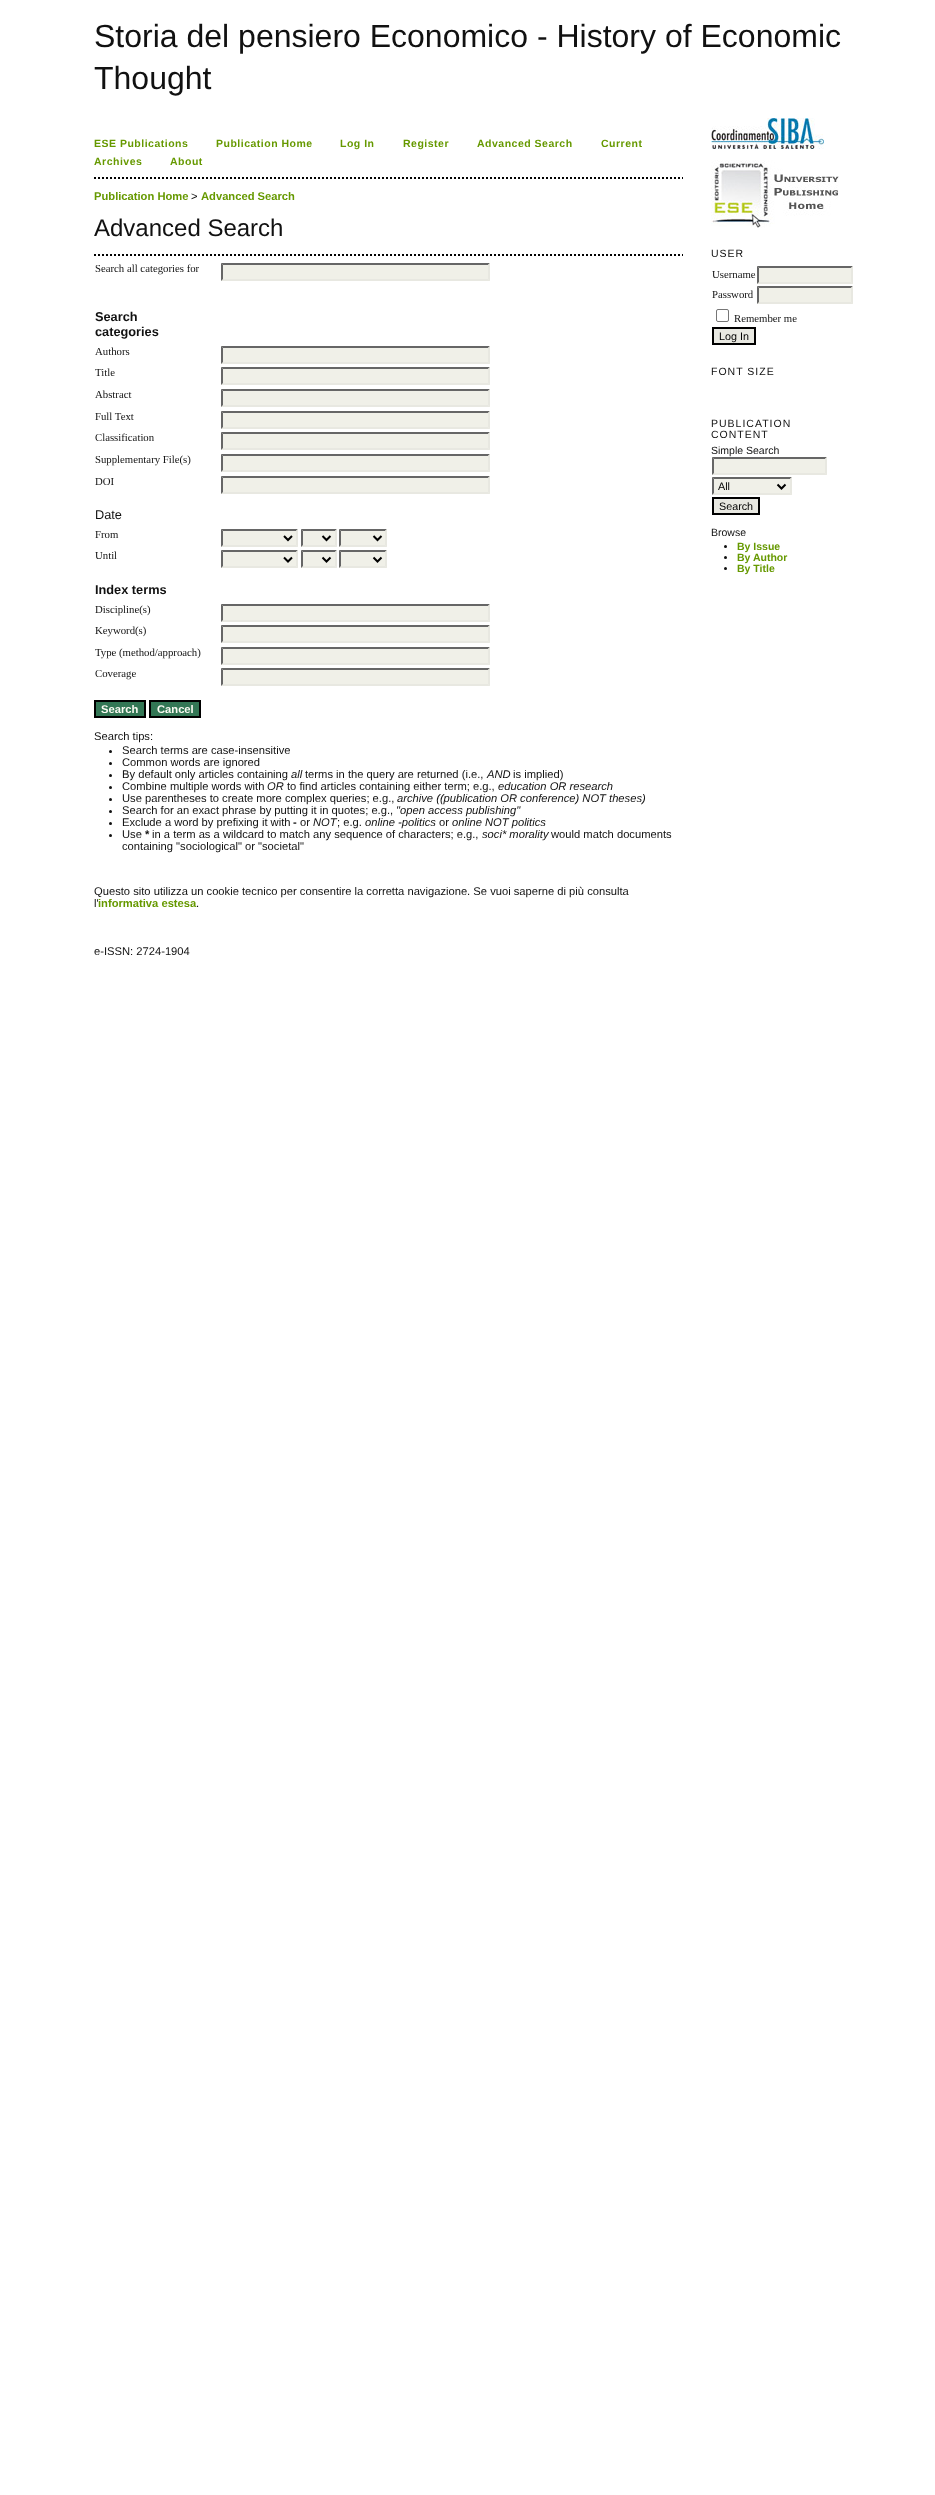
<!DOCTYPE html>
<meta charset="utf-8">
<style>body { margin: 0 } canvas { display: block }</style>
<canvas id="canvas" width="935" height="2495"></canvas>
<img id="img1" src="images/1.png" hidden>
<img id="img2" src="images/2.png" hidden>
<script>
window.onload = function () {
    const canvas = document.getElementById('canvas');
    const context = canvas.getContext('2d');
    context.miterLimit = 4;
    context.fontKerning = 'normal';

    context.fillStyle = 'rgb(255, 255, 255)';
    context.fillRect(0, 0, 935, 2495);
    context.beginPath();
    context.moveTo(94, 178);
    context.lineTo(683, 178);
    context.strokeStyle = 'rgb(0, 0, 0)';
    context.lineWidth = 2;
    context.setLineDash([2, 2]);
    context.stroke();
    context.beginPath();
    context.moveTo(94, 255);
    context.lineTo(683, 255);
    context.stroke();
    context.fillStyle = 'rgb(240, 240, 232)';
    context.fillRect(221, 263, 269, 18);
    context.fillStyle = 'rgb(102, 102, 102)';
    context.beginPath();
    context.moveTo(221, 263);
    context.lineTo(490, 263);
    context.lineTo(488, 265);
    context.lineTo(223, 265);
    context.closePath();
    context.fill();
    context.fillStyle = 'rgb(232, 232, 225)';
    context.beginPath();
    context.moveTo(490, 263);
    context.lineTo(490, 281);
    context.lineTo(488, 279);
    context.lineTo(488, 265);
    context.closePath();
    context.fill();
    context.beginPath();
    context.moveTo(490, 281);
    context.lineTo(221, 281);
    context.lineTo(223, 279);
    context.lineTo(488, 279);
    context.closePath();
    context.fill();
    context.fillStyle = 'rgb(102, 102, 102)';
    context.beginPath();
    context.moveTo(221, 281);
    context.lineTo(221, 263);
    context.lineTo(223, 265);
    context.lineTo(223, 279);
    context.closePath();
    context.fill();
    context.fillStyle = 'rgb(240, 240, 232)';
    context.fillRect(221, 346, 269, 18);
    context.fillStyle = 'rgb(102, 102, 102)';
    context.beginPath();
    context.moveTo(221, 346);
    context.lineTo(490, 346);
    context.lineTo(488, 348);
    context.lineTo(223, 348);
    context.closePath();
    context.fill();
    context.fillStyle = 'rgb(232, 232, 225)';
    context.beginPath();
    context.moveTo(490, 346);
    context.lineTo(490, 364);
    context.lineTo(488, 362);
    context.lineTo(488, 348);
    context.closePath();
    context.fill();
    context.beginPath();
    context.moveTo(490, 364);
    context.lineTo(221, 364);
    context.lineTo(223, 362);
    context.lineTo(488, 362);
    context.closePath();
    context.fill();
    context.fillStyle = 'rgb(102, 102, 102)';
    context.beginPath();
    context.moveTo(221, 364);
    context.lineTo(221, 346);
    context.lineTo(223, 348);
    context.lineTo(223, 362);
    context.closePath();
    context.fill();
    context.fillStyle = 'rgb(240, 240, 232)';
    context.fillRect(221, 367, 269, 18);
    context.fillStyle = 'rgb(102, 102, 102)';
    context.beginPath();
    context.moveTo(221, 367);
    context.lineTo(490, 367);
    context.lineTo(488, 369);
    context.lineTo(223, 369);
    context.closePath();
    context.fill();
    context.fillStyle = 'rgb(232, 232, 225)';
    context.beginPath();
    context.moveTo(490, 367);
    context.lineTo(490, 385);
    context.lineTo(488, 383);
    context.lineTo(488, 369);
    context.closePath();
    context.fill();
    context.beginPath();
    context.moveTo(490, 385);
    context.lineTo(221, 385);
    context.lineTo(223, 383);
    context.lineTo(488, 383);
    context.closePath();
    context.fill();
    context.fillStyle = 'rgb(102, 102, 102)';
    context.beginPath();
    context.moveTo(221, 385);
    context.lineTo(221, 367);
    context.lineTo(223, 369);
    context.lineTo(223, 383);
    context.closePath();
    context.fill();
    context.fillStyle = 'rgb(240, 240, 232)';
    context.fillRect(221, 389, 269, 18);
    context.fillStyle = 'rgb(102, 102, 102)';
    context.beginPath();
    context.moveTo(221, 389);
    context.lineTo(490, 389);
    context.lineTo(488, 391);
    context.lineTo(223, 391);
    context.closePath();
    context.fill();
    context.fillStyle = 'rgb(232, 232, 225)';
    context.beginPath();
    context.moveTo(490, 389);
    context.lineTo(490, 407);
    context.lineTo(488, 405);
    context.lineTo(488, 391);
    context.closePath();
    context.fill();
    context.beginPath();
    context.moveTo(490, 407);
    context.lineTo(221, 407);
    context.lineTo(223, 405);
    context.lineTo(488, 405);
    context.closePath();
    context.fill();
    context.fillStyle = 'rgb(102, 102, 102)';
    context.beginPath();
    context.moveTo(221, 407);
    context.lineTo(221, 389);
    context.lineTo(223, 391);
    context.lineTo(223, 405);
    context.closePath();
    context.fill();
    context.fillStyle = 'rgb(240, 240, 232)';
    context.fillRect(221, 411, 269, 18);
    context.fillStyle = 'rgb(102, 102, 102)';
    context.beginPath();
    context.moveTo(221, 411);
    context.lineTo(490, 411);
    context.lineTo(488, 413);
    context.lineTo(223, 413);
    context.closePath();
    context.fill();
    context.fillStyle = 'rgb(232, 232, 225)';
    context.beginPath();
    context.moveTo(490, 411);
    context.lineTo(490, 429);
    context.lineTo(488, 427);
    context.lineTo(488, 413);
    context.closePath();
    context.fill();
    context.beginPath();
    context.moveTo(490, 429);
    context.lineTo(221, 429);
    context.lineTo(223, 427);
    context.lineTo(488, 427);
    context.closePath();
    context.fill();
    context.fillStyle = 'rgb(102, 102, 102)';
    context.beginPath();
    context.moveTo(221, 429);
    context.lineTo(221, 411);
    context.lineTo(223, 413);
    context.lineTo(223, 427);
    context.closePath();
    context.fill();
    context.fillStyle = 'rgb(240, 240, 232)';
    context.fillRect(221, 432, 269, 18);
    context.fillStyle = 'rgb(102, 102, 102)';
    context.beginPath();
    context.moveTo(221, 432);
    context.lineTo(490, 432);
    context.lineTo(488, 434);
    context.lineTo(223, 434);
    context.closePath();
    context.fill();
    context.fillStyle = 'rgb(232, 232, 225)';
    context.beginPath();
    context.moveTo(490, 432);
    context.lineTo(490, 450);
    context.lineTo(488, 448);
    context.lineTo(488, 434);
    context.closePath();
    context.fill();
    context.beginPath();
    context.moveTo(490, 450);
    context.lineTo(221, 450);
    context.lineTo(223, 448);
    context.lineTo(488, 448);
    context.closePath();
    context.fill();
    context.fillStyle = 'rgb(102, 102, 102)';
    context.beginPath();
    context.moveTo(221, 450);
    context.lineTo(221, 432);
    context.lineTo(223, 434);
    context.lineTo(223, 448);
    context.closePath();
    context.fill();
    context.fillStyle = 'rgb(240, 240, 232)';
    context.fillRect(221, 454, 269, 18);
    context.fillStyle = 'rgb(102, 102, 102)';
    context.beginPath();
    context.moveTo(221, 454);
    context.lineTo(490, 454);
    context.lineTo(488, 456);
    context.lineTo(223, 456);
    context.closePath();
    context.fill();
    context.fillStyle = 'rgb(232, 232, 225)';
    context.beginPath();
    context.moveTo(490, 454);
    context.lineTo(490, 472);
    context.lineTo(488, 470);
    context.lineTo(488, 456);
    context.closePath();
    context.fill();
    context.beginPath();
    context.moveTo(490, 472);
    context.lineTo(221, 472);
    context.lineTo(223, 470);
    context.lineTo(488, 470);
    context.closePath();
    context.fill();
    context.fillStyle = 'rgb(102, 102, 102)';
    context.beginPath();
    context.moveTo(221, 472);
    context.lineTo(221, 454);
    context.lineTo(223, 456);
    context.lineTo(223, 470);
    context.closePath();
    context.fill();
    context.fillStyle = 'rgb(240, 240, 232)';
    context.fillRect(221, 476, 269, 18);
    context.fillStyle = 'rgb(102, 102, 102)';
    context.beginPath();
    context.moveTo(221, 476);
    context.lineTo(490, 476);
    context.lineTo(488, 478);
    context.lineTo(223, 478);
    context.closePath();
    context.fill();
    context.fillStyle = 'rgb(232, 232, 225)';
    context.beginPath();
    context.moveTo(490, 476);
    context.lineTo(490, 494);
    context.lineTo(488, 492);
    context.lineTo(488, 478);
    context.closePath();
    context.fill();
    context.beginPath();
    context.moveTo(490, 494);
    context.lineTo(221, 494);
    context.lineTo(223, 492);
    context.lineTo(488, 492);
    context.closePath();
    context.fill();
    context.fillStyle = 'rgb(102, 102, 102)';
    context.beginPath();
    context.moveTo(221, 494);
    context.lineTo(221, 476);
    context.lineTo(223, 478);
    context.lineTo(223, 492);
    context.closePath();
    context.fill();
    context.fillStyle = 'rgb(240, 240, 232)';
    context.fillRect(221, 529, 77, 18);
    context.fillStyle = 'rgb(102, 102, 102)';
    context.beginPath();
    context.moveTo(221, 529);
    context.lineTo(298, 529);
    context.lineTo(296, 531);
    context.lineTo(223, 531);
    context.closePath();
    context.fill();
    context.fillStyle = 'rgb(232, 232, 225)';
    context.beginPath();
    context.moveTo(298, 529);
    context.lineTo(298, 547);
    context.lineTo(296, 545);
    context.lineTo(296, 531);
    context.closePath();
    context.fill();
    context.beginPath();
    context.moveTo(298, 547);
    context.lineTo(221, 547);
    context.lineTo(223, 545);
    context.lineTo(296, 545);
    context.closePath();
    context.fill();
    context.fillStyle = 'rgb(102, 102, 102)';
    context.beginPath();
    context.moveTo(221, 547);
    context.lineTo(221, 529);
    context.lineTo(223, 531);
    context.lineTo(223, 545);
    context.closePath();
    context.fill();
    context.beginPath();
    context.moveTo(284, 536);
    context.lineTo(288, 540);
    context.lineTo(292, 536);
    context.setLineDash([]);
    context.stroke();
    context.fillStyle = 'rgb(240, 240, 232)';
    context.fillRect(301, 529, 36, 18);
    context.fillStyle = 'rgb(102, 102, 102)';
    context.beginPath();
    context.moveTo(301, 529);
    context.lineTo(337, 529);
    context.lineTo(335, 531);
    context.lineTo(303, 531);
    context.closePath();
    context.fill();
    context.fillStyle = 'rgb(232, 232, 225)';
    context.beginPath();
    context.moveTo(337, 529);
    context.lineTo(337, 547);
    context.lineTo(335, 545);
    context.lineTo(335, 531);
    context.closePath();
    context.fill();
    context.beginPath();
    context.moveTo(337, 547);
    context.lineTo(301, 547);
    context.lineTo(303, 545);
    context.lineTo(335, 545);
    context.closePath();
    context.fill();
    context.fillStyle = 'rgb(102, 102, 102)';
    context.beginPath();
    context.moveTo(301, 547);
    context.lineTo(301, 529);
    context.lineTo(303, 531);
    context.lineTo(303, 545);
    context.closePath();
    context.fill();
    context.beginPath();
    context.moveTo(322.5, 536);
    context.lineTo(326.5, 540);
    context.lineTo(330.5, 536);
    context.stroke();
    context.fillStyle = 'rgb(240, 240, 232)';
    context.fillRect(339, 529, 48, 18);
    context.fillStyle = 'rgb(102, 102, 102)';
    context.beginPath();
    context.moveTo(339, 529);
    context.lineTo(387, 529);
    context.lineTo(385, 531);
    context.lineTo(341, 531);
    context.closePath();
    context.fill();
    context.fillStyle = 'rgb(232, 232, 225)';
    context.beginPath();
    context.moveTo(387, 529);
    context.lineTo(387, 547);
    context.lineTo(385, 545);
    context.lineTo(385, 531);
    context.closePath();
    context.fill();
    context.beginPath();
    context.moveTo(387, 547);
    context.lineTo(339, 547);
    context.lineTo(341, 545);
    context.lineTo(385, 545);
    context.closePath();
    context.fill();
    context.fillStyle = 'rgb(102, 102, 102)';
    context.beginPath();
    context.moveTo(339, 547);
    context.lineTo(339, 529);
    context.lineTo(341, 531);
    context.lineTo(341, 545);
    context.closePath();
    context.fill();
    context.beginPath();
    context.moveTo(373.5, 536);
    context.lineTo(377.5, 540);
    context.lineTo(381.5, 536);
    context.stroke();
    context.fillStyle = 'rgb(240, 240, 232)';
    context.fillRect(221, 550, 77, 18);
    context.fillStyle = 'rgb(102, 102, 102)';
    context.beginPath();
    context.moveTo(221, 550);
    context.lineTo(298, 550);
    context.lineTo(296, 552);
    context.lineTo(223, 552);
    context.closePath();
    context.fill();
    context.fillStyle = 'rgb(232, 232, 225)';
    context.beginPath();
    context.moveTo(298, 550);
    context.lineTo(298, 568);
    context.lineTo(296, 566);
    context.lineTo(296, 552);
    context.closePath();
    context.fill();
    context.beginPath();
    context.moveTo(298, 568);
    context.lineTo(221, 568);
    context.lineTo(223, 566);
    context.lineTo(296, 566);
    context.closePath();
    context.fill();
    context.fillStyle = 'rgb(102, 102, 102)';
    context.beginPath();
    context.moveTo(221, 568);
    context.lineTo(221, 550);
    context.lineTo(223, 552);
    context.lineTo(223, 566);
    context.closePath();
    context.fill();
    context.beginPath();
    context.moveTo(284, 557.5);
    context.lineTo(288, 561.5);
    context.lineTo(292, 557.5);
    context.stroke();
    context.fillStyle = 'rgb(240, 240, 232)';
    context.fillRect(301, 550, 36, 18);
    context.fillStyle = 'rgb(102, 102, 102)';
    context.beginPath();
    context.moveTo(301, 550);
    context.lineTo(337, 550);
    context.lineTo(335, 552);
    context.lineTo(303, 552);
    context.closePath();
    context.fill();
    context.fillStyle = 'rgb(232, 232, 225)';
    context.beginPath();
    context.moveTo(337, 550);
    context.lineTo(337, 568);
    context.lineTo(335, 566);
    context.lineTo(335, 552);
    context.closePath();
    context.fill();
    context.beginPath();
    context.moveTo(337, 568);
    context.lineTo(301, 568);
    context.lineTo(303, 566);
    context.lineTo(335, 566);
    context.closePath();
    context.fill();
    context.fillStyle = 'rgb(102, 102, 102)';
    context.beginPath();
    context.moveTo(301, 568);
    context.lineTo(301, 550);
    context.lineTo(303, 552);
    context.lineTo(303, 566);
    context.closePath();
    context.fill();
    context.beginPath();
    context.moveTo(322.5, 557.5);
    context.lineTo(326.5, 561.5);
    context.lineTo(330.5, 557.5);
    context.stroke();
    context.fillStyle = 'rgb(240, 240, 232)';
    context.fillRect(339, 550, 48, 18);
    context.fillStyle = 'rgb(102, 102, 102)';
    context.beginPath();
    context.moveTo(339, 550);
    context.lineTo(387, 550);
    context.lineTo(385, 552);
    context.lineTo(341, 552);
    context.closePath();
    context.fill();
    context.fillStyle = 'rgb(232, 232, 225)';
    context.beginPath();
    context.moveTo(387, 550);
    context.lineTo(387, 568);
    context.lineTo(385, 566);
    context.lineTo(385, 552);
    context.closePath();
    context.fill();
    context.beginPath();
    context.moveTo(387, 568);
    context.lineTo(339, 568);
    context.lineTo(341, 566);
    context.lineTo(385, 566);
    context.closePath();
    context.fill();
    context.fillStyle = 'rgb(102, 102, 102)';
    context.beginPath();
    context.moveTo(339, 568);
    context.lineTo(339, 550);
    context.lineTo(341, 552);
    context.lineTo(341, 566);
    context.closePath();
    context.fill();
    context.beginPath();
    context.moveTo(373.5, 557.5);
    context.lineTo(377.5, 561.5);
    context.lineTo(381.5, 557.5);
    context.stroke();
    context.fillStyle = 'rgb(240, 240, 232)';
    context.fillRect(221, 604, 269, 18);
    context.fillStyle = 'rgb(102, 102, 102)';
    context.beginPath();
    context.moveTo(221, 604);
    context.lineTo(490, 604);
    context.lineTo(488, 606);
    context.lineTo(223, 606);
    context.closePath();
    context.fill();
    context.fillStyle = 'rgb(232, 232, 225)';
    context.beginPath();
    context.moveTo(490, 604);
    context.lineTo(490, 622);
    context.lineTo(488, 620);
    context.lineTo(488, 606);
    context.closePath();
    context.fill();
    context.beginPath();
    context.moveTo(490, 622);
    context.lineTo(221, 622);
    context.lineTo(223, 620);
    context.lineTo(488, 620);
    context.closePath();
    context.fill();
    context.fillStyle = 'rgb(102, 102, 102)';
    context.beginPath();
    context.moveTo(221, 622);
    context.lineTo(221, 604);
    context.lineTo(223, 606);
    context.lineTo(223, 620);
    context.closePath();
    context.fill();
    context.fillStyle = 'rgb(240, 240, 232)';
    context.fillRect(221, 625, 269, 18);
    context.fillStyle = 'rgb(102, 102, 102)';
    context.beginPath();
    context.moveTo(221, 625);
    context.lineTo(490, 625);
    context.lineTo(488, 627);
    context.lineTo(223, 627);
    context.closePath();
    context.fill();
    context.fillStyle = 'rgb(232, 232, 225)';
    context.beginPath();
    context.moveTo(490, 625);
    context.lineTo(490, 643);
    context.lineTo(488, 641);
    context.lineTo(488, 627);
    context.closePath();
    context.fill();
    context.beginPath();
    context.moveTo(490, 643);
    context.lineTo(221, 643);
    context.lineTo(223, 641);
    context.lineTo(488, 641);
    context.closePath();
    context.fill();
    context.fillStyle = 'rgb(102, 102, 102)';
    context.beginPath();
    context.moveTo(221, 643);
    context.lineTo(221, 625);
    context.lineTo(223, 627);
    context.lineTo(223, 641);
    context.closePath();
    context.fill();
    context.fillStyle = 'rgb(240, 240, 232)';
    context.fillRect(221, 647, 269, 18);
    context.fillStyle = 'rgb(102, 102, 102)';
    context.beginPath();
    context.moveTo(221, 647);
    context.lineTo(490, 647);
    context.lineTo(488, 649);
    context.lineTo(223, 649);
    context.closePath();
    context.fill();
    context.fillStyle = 'rgb(232, 232, 225)';
    context.beginPath();
    context.moveTo(490, 647);
    context.lineTo(490, 665);
    context.lineTo(488, 663);
    context.lineTo(488, 649);
    context.closePath();
    context.fill();
    context.beginPath();
    context.moveTo(490, 665);
    context.lineTo(221, 665);
    context.lineTo(223, 663);
    context.lineTo(488, 663);
    context.closePath();
    context.fill();
    context.fillStyle = 'rgb(102, 102, 102)';
    context.beginPath();
    context.moveTo(221, 665);
    context.lineTo(221, 647);
    context.lineTo(223, 649);
    context.lineTo(223, 663);
    context.closePath();
    context.fill();
    context.fillStyle = 'rgb(240, 240, 232)';
    context.fillRect(221, 668, 269, 18);
    context.fillStyle = 'rgb(102, 102, 102)';
    context.beginPath();
    context.moveTo(221, 668);
    context.lineTo(490, 668);
    context.lineTo(488, 670);
    context.lineTo(223, 670);
    context.closePath();
    context.fill();
    context.fillStyle = 'rgb(232, 232, 225)';
    context.beginPath();
    context.moveTo(490, 668);
    context.lineTo(490, 686);
    context.lineTo(488, 684);
    context.lineTo(488, 670);
    context.closePath();
    context.fill();
    context.beginPath();
    context.moveTo(490, 686);
    context.lineTo(221, 686);
    context.lineTo(223, 684);
    context.lineTo(488, 684);
    context.closePath();
    context.fill();
    context.fillStyle = 'rgb(102, 102, 102)';
    context.beginPath();
    context.moveTo(221, 686);
    context.lineTo(221, 668);
    context.lineTo(223, 670);
    context.lineTo(223, 684);
    context.closePath();
    context.fill();
    context.fillStyle = 'rgb(51, 119, 85)';
    context.beginPath();
    context.rect(95, 701, 50, 16);
    context.fill();
    context.stroke();
    context.beginPath();
    context.rect(150, 701, 50, 16);
    context.fill();
    context.stroke();
    context.fillStyle = 'rgb(17, 17, 17)';
    context.beginPath();
    context.arc(110.5, 751.5, 1.5, 0, 2 * Math.PI);
    context.fill();
    context.beginPath();
    context.arc(110.5, 763.5, 1.5, 0, 2 * Math.PI);
    context.fill();
    context.beginPath();
    context.arc(110.5, 775.5, 1.5, 0, 2 * Math.PI);
    context.fill();
    context.beginPath();
    context.arc(110.5, 787.5, 1.5, 0, 2 * Math.PI);
    context.fill();
    context.beginPath();
    context.arc(110.5, 799.5, 1.5, 0, 2 * Math.PI);
    context.fill();
    context.beginPath();
    context.arc(110.5, 811.5, 1.5, 0, 2 * Math.PI);
    context.fill();
    context.beginPath();
    context.arc(110.5, 823.5, 1.5, 0, 2 * Math.PI);
    context.fill();
    context.beginPath();
    context.arc(110.5, 835.5, 1.5, 0, 2 * Math.PI);
    context.fill();
    context.drawImage(document.getElementById('img1'), 711, 118, 113, 31);
    context.drawImage(document.getElementById('img2'), 711, 160, 128, 68);
    context.fillStyle = 'rgb(240, 240, 232)';
    context.fillRect(757, 266, 96, 18);
    context.fillStyle = 'rgb(102, 102, 102)';
    context.beginPath();
    context.moveTo(757, 266);
    context.lineTo(853, 266);
    context.lineTo(851, 268);
    context.lineTo(759, 268);
    context.closePath();
    context.fill();
    context.fillStyle = 'rgb(232, 232, 225)';
    context.beginPath();
    context.moveTo(853, 266);
    context.lineTo(853, 284);
    context.lineTo(851, 282);
    context.lineTo(851, 268);
    context.closePath();
    context.fill();
    context.beginPath();
    context.moveTo(853, 284);
    context.lineTo(757, 284);
    context.lineTo(759, 282);
    context.lineTo(851, 282);
    context.closePath();
    context.fill();
    context.fillStyle = 'rgb(102, 102, 102)';
    context.beginPath();
    context.moveTo(757, 284);
    context.lineTo(757, 266);
    context.lineTo(759, 268);
    context.lineTo(759, 282);
    context.closePath();
    context.fill();
    context.fillStyle = 'rgb(240, 240, 232)';
    context.fillRect(757, 286, 96, 18);
    context.fillStyle = 'rgb(102, 102, 102)';
    context.beginPath();
    context.moveTo(757, 286);
    context.lineTo(853, 286);
    context.lineTo(851, 288);
    context.lineTo(759, 288);
    context.closePath();
    context.fill();
    context.fillStyle = 'rgb(232, 232, 225)';
    context.beginPath();
    context.moveTo(853, 286);
    context.lineTo(853, 304);
    context.lineTo(851, 302);
    context.lineTo(851, 288);
    context.closePath();
    context.fill();
    context.beginPath();
    context.moveTo(853, 304);
    context.lineTo(757, 304);
    context.lineTo(759, 302);
    context.lineTo(851, 302);
    context.closePath();
    context.fill();
    context.fillStyle = 'rgb(102, 102, 102)';
    context.beginPath();
    context.moveTo(757, 304);
    context.lineTo(757, 286);
    context.lineTo(759, 288);
    context.lineTo(759, 302);
    context.closePath();
    context.fill();
    context.beginPath();
    context.roundRect(716.5, 309.5, 12, 12, 1.5);
    context.strokeStyle = 'rgb(118, 118, 118)';
    context.lineWidth = 1;
    context.stroke();
    context.fillStyle = 'rgb(232, 232, 225)';
    context.beginPath();
    context.rect(713, 328, 42, 16);
    context.fill();
    context.strokeStyle = 'rgb(0, 0, 0)';
    context.lineWidth = 2;
    context.stroke();
    context.fillStyle = 'rgb(240, 240, 232)';
    context.fillRect(712, 457, 115, 18);
    context.fillStyle = 'rgb(102, 102, 102)';
    context.beginPath();
    context.moveTo(712, 457);
    context.lineTo(827, 457);
    context.lineTo(825, 459);
    context.lineTo(714, 459);
    context.closePath();
    context.fill();
    context.fillStyle = 'rgb(232, 232, 225)';
    context.beginPath();
    context.moveTo(827, 457);
    context.lineTo(827, 475);
    context.lineTo(825, 473);
    context.lineTo(825, 459);
    context.closePath();
    context.fill();
    context.beginPath();
    context.moveTo(827, 475);
    context.lineTo(712, 475);
    context.lineTo(714, 473);
    context.lineTo(825, 473);
    context.closePath();
    context.fill();
    context.fillStyle = 'rgb(102, 102, 102)';
    context.beginPath();
    context.moveTo(712, 475);
    context.lineTo(712, 457);
    context.lineTo(714, 459);
    context.lineTo(714, 473);
    context.closePath();
    context.fill();
    context.fillStyle = 'rgb(240, 240, 232)';
    context.fillRect(712, 477, 80, 18);
    context.fillStyle = 'rgb(102, 102, 102)';
    context.beginPath();
    context.moveTo(712, 477);
    context.lineTo(792, 477);
    context.lineTo(790, 479);
    context.lineTo(714, 479);
    context.closePath();
    context.fill();
    context.fillStyle = 'rgb(232, 232, 225)';
    context.beginPath();
    context.moveTo(792, 477);
    context.lineTo(792, 495);
    context.lineTo(790, 493);
    context.lineTo(790, 479);
    context.closePath();
    context.fill();
    context.beginPath();
    context.moveTo(792, 495);
    context.lineTo(712, 495);
    context.lineTo(714, 493);
    context.lineTo(790, 493);
    context.closePath();
    context.fill();
    context.fillStyle = 'rgb(102, 102, 102)';
    context.beginPath();
    context.moveTo(712, 495);
    context.lineTo(712, 477);
    context.lineTo(714, 479);
    context.lineTo(714, 493);
    context.closePath();
    context.fill();
    context.beginPath();
    context.moveTo(777.5, 484.5);
    context.lineTo(781.5, 488.5);
    context.lineTo(785.5, 484.5);
    context.stroke();
    context.fillStyle = 'rgb(232, 232, 225)';
    context.beginPath();
    context.rect(713, 498, 46, 16);
    context.fill();
    context.stroke();
    context.fillStyle = 'rgb(17, 17, 17)';
    context.beginPath();
    context.arc(725.5, 546.5, 1.5, 0, 2 * Math.PI);
    context.fill();
    context.beginPath();
    context.arc(725.5, 557.5, 1.5, 0, 2 * Math.PI);
    context.fill();
    context.beginPath();
    context.arc(725.5, 568.5, 1.5, 0, 2 * Math.PI);
    context.fill();
    context.font = '32px Liberation Sans';
    context.fillText('Storia del pensiero Economico - History of Economic', 94, 47);
    context.fillText('Thought', 94, 89);
    context.letterSpacing = '0.5px';
    context.font = 'bold 10.5px Liberation Sans';
    context.fillStyle = 'rgb(102, 153, 0)';
    context.fillText('ESE Publications', 94, 147);
    context.fillText('Publication Home', 216, 147);
    context.fillText('Log In', 340, 147);
    context.fillText('Register', 403, 147);
    context.fillText('Advanced Search', 477, 147);
    context.fillText('Current', 601, 147);
    context.fillText('Archives', 94, 165);
    context.fillText('About', 170, 165);
    context.letterSpacing = '0px';
    context.font = 'bold 11.2px Liberation Sans';
    context.fillText('Publication Home', 94, 200);
    context.font = '11.2px Liberation Sans';
    context.fillStyle = 'rgb(17, 17, 17)';
    context.fillText('>', 191, 200);
    context.font = 'bold 11.2px Liberation Sans';
    context.fillStyle = 'rgb(102, 153, 0)';
    context.fillText('Advanced Search', 201, 200);
    context.font = '24px Liberation Sans';
    context.fillStyle = 'rgb(17, 17, 17)';
    context.fillText('Advanced Search', 94, 236);
    context.font = '10.75px Liberation Serif';
    context.fillText('Search all categories for', 95, 272);
    context.font = 'bold 12.75px Liberation Sans';
    context.fillText('Search', 95, 321);
    context.fillText('categories', 95, 336);
    context.font = '10.75px Liberation Serif';
    context.fillText('Authors', 95, 355);
    context.fillText('Title', 95, 376);
    context.fillText('Abstract', 95, 398);
    context.fillText('Full Text', 95, 420);
    context.fillText('Classification', 95, 441);
    context.fillText('Supplementary File(s)', 95, 463);
    context.fillText('DOI', 95, 485);
    context.font = '12.75px Liberation Sans';
    context.fillText('Date', 95, 519);
    context.font = '10.75px Liberation Serif';
    context.fillText('From', 95, 538);
    context.fillText('Until', 95, 559);
    context.font = 'bold 12.75px Liberation Sans';
    context.fillText('Index terms', 95, 594);
    context.font = '10.75px Liberation Serif';
    context.fillText('Discipline(s)', 95, 613);
    context.fillText('Keyword(s)', 95, 634);
    context.fillText('Type (method/approach)', 95, 656);
    context.fillText('Coverage', 95, 677);
    context.font = 'bold 11.2px Liberation Sans';
    context.fillStyle = 'rgb(251, 251, 243)';
    context.fillText('Search', 101, 713);
    context.fillText('Cancel', 157, 713);
    context.font = '11.2px Liberation Sans';
    context.fillStyle = 'rgb(17, 17, 17)';
    context.fillText('Search tips:', 94, 740);
    context.fillText('Search terms are case-insensitive', 122, 754);
    context.fillText('Common words are ignored', 122, 766);
    context.fillText('By default only articles containing', 122, 778);
    context.font = 'italic 11.2px Liberation Sans';
    context.fillText('all', 291, 778);
    context.font = '11.2px Liberation Sans';
    context.fillText('terms in the query are returned (i.e.,', 305, 778);
    context.font = 'italic 11.2px Liberation Sans';
    context.fillText('AND', 487, 778);
    context.font = '11.2px Liberation Sans';
    context.fillText('is implied)', 513, 778);
    context.fillText('Combine multiple words with', 122, 790);
    context.font = 'italic 11.2px Liberation Sans';
    context.fillText('OR', 267, 790);
    context.font = '11.2px Liberation Sans';
    context.fillText('to find articles containing either term; e.g.,', 287, 790);
    context.font = 'italic 11.2px Liberation Sans';
    context.fillText('education OR research', 498, 790);
    context.font = '11.2px Liberation Sans';
    context.fillText('Use parentheses to create more complex queries; e.g.,', 122, 802);
    context.font = 'italic 11.2px Liberation Sans';
    context.fillText('archive ((publication OR conference) NOT theses)', 397, 802);
    context.font = '11.2px Liberation Sans';
    context.fillText('Search for an exact phrase by putting it in quotes; e.g.,', 122, 814);
    context.font = 'italic 11.2px Liberation Sans';
    context.fillText('"open access publishing"', 396, 814);
    context.font = '11.2px Liberation Sans';
    context.fillText('Exclude a word by prefixing it with', 122, 826);
    context.font = 'bold 11.2px Liberation Sans';
    context.fillText('-', 293, 826);
    context.font = '11.2px Liberation Sans';
    context.fillText('or', 300, 826);
    context.font = 'italic 11.2px Liberation Sans';
    context.fillText('NOT', 313, 826);
    context.font = '11.2px Liberation Sans';
    context.fillText('; e.g.', 337, 826);
    context.font = 'italic 11.2px Liberation Sans';
    context.fillText('online -politics', 365, 826);
    context.font = '11.2px Liberation Sans';
    context.fillText('or', 439, 826);
    context.font = 'italic 11.2px Liberation Sans';
    context.fillText('online NOT politics', 452, 826);
    context.font = '11.2px Liberation Sans';
    context.fillText('Use', 122, 838);
    context.font = 'bold 11.2px Liberation Sans';
    context.fillText('*', 145, 838);
    context.font = '11.2px Liberation Sans';
    context.fillText('in a term as a wildcard to match any sequence of characters; e.g.,', 152, 838);
    context.font = 'italic 11.2px Liberation Sans';
    context.fillText('soci* morality', 482, 838);
    context.font = '11.2px Liberation Sans';
    context.fillText('would match documents', 551, 838);
    context.fillText('containing "sociological" or "societal"', 122, 850);
    context.fillText('Questo sito utilizza un cookie tecnico per consentire la corretta navigazione. Se vuoi saperne di più consulta', 94, 895);
    context.fillText('l\'', 94, 907);
    context.font = 'bold 11.2px Liberation Sans';
    context.fillStyle = 'rgb(102, 153, 0)';
    context.fillText('informativa estesa', 98, 907);
    context.font = '11.2px Liberation Sans';
    context.fillStyle = 'rgb(17, 17, 17)';
    context.fillText('.', 196, 907);
    context.fillText('e-ISSN: 2724-1904', 94, 955);
    context.letterSpacing = '1px';
    context.font = '10.5px Liberation Sans';
    context.fillText('USER', 711, 257);
    context.letterSpacing = '0px';
    context.font = '10.75px Liberation Serif';
    context.fillText('Username', 712, 278);
    context.fillText('Password', 712, 298);
    context.fillText('Remember me', 734, 322);
    context.font = '10.75px Liberation Sans';
    context.fillStyle = 'rgb(0, 0, 0)';
    context.fillText('Log In', 719, 340);
    context.letterSpacing = '1px';
    context.font = '10.5px Liberation Sans';
    context.fillStyle = 'rgb(17, 17, 17)';
    context.fillText('FONT SIZE', 711, 375);
    context.fillText('PUBLICATION', 711, 427);
    context.fillText('CONTENT', 711, 438);
    context.letterSpacing = '0px';
    context.fillText('Simple Search', 711, 454);
    context.font = '10.75px Liberation Sans';
    context.fillStyle = 'rgb(0, 0, 0)';
    context.fillText('All', 718, 490);
    context.fillText('Search', 719, 510);
    context.font = '10.5px Liberation Sans';
    context.fillStyle = 'rgb(17, 17, 17)';
    context.fillText('Browse', 711, 536);
    context.font = 'bold 10.5px Liberation Sans';
    context.fillStyle = 'rgb(102, 153, 0)';
    context.fillText('By Issue', 737, 550);
    context.fillText('By Author', 737, 561);
    context.fillText('By Title', 737, 572);
};
</script>
